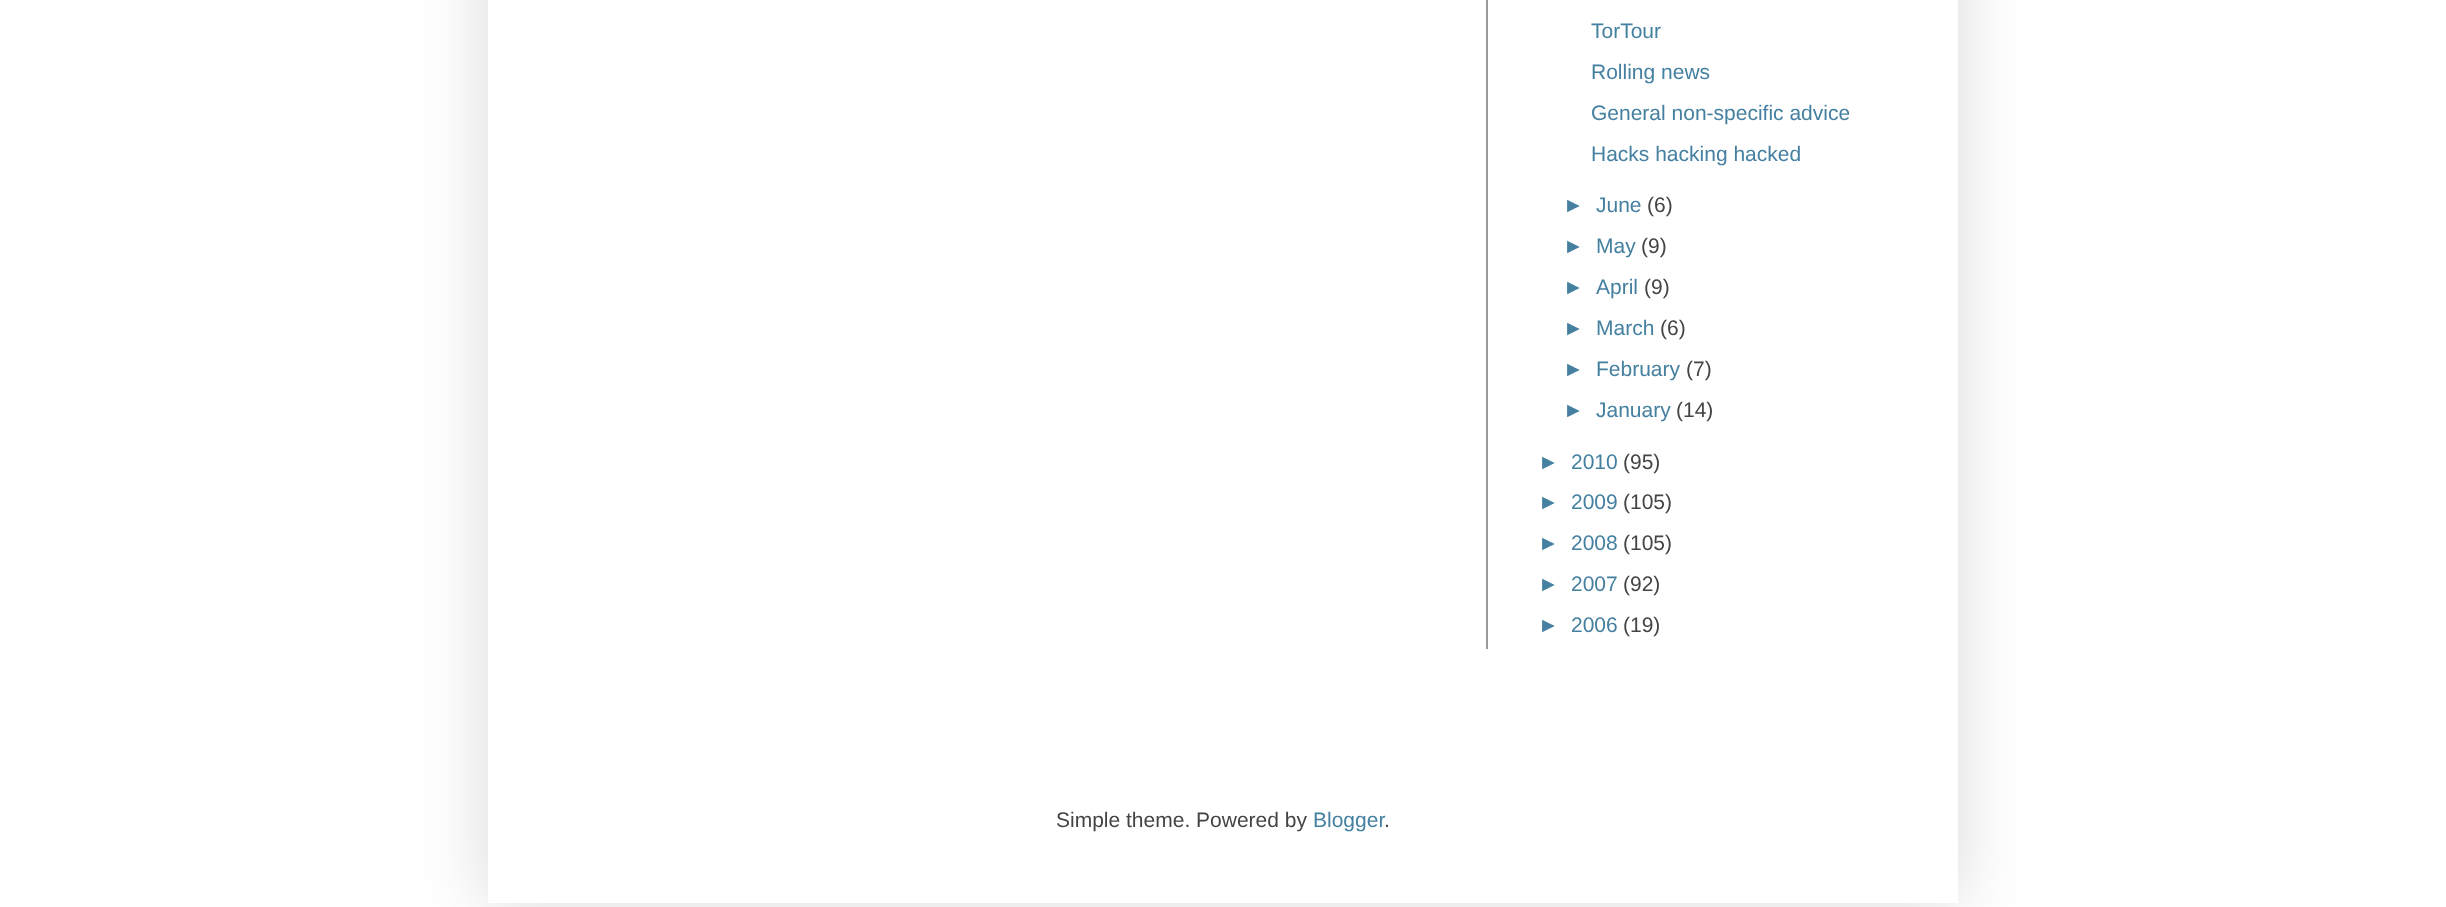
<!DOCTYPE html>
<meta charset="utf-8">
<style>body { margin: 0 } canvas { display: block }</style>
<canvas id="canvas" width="2446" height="907"></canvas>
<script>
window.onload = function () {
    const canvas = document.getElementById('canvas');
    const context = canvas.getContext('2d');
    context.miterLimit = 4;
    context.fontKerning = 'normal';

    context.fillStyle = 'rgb(255, 255, 255)';
    context.fillRect(0, 0, 2446, 907);
    context.save();
    context.beginPath();
    context.moveTo(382, 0);
    context.lineTo(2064, 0);
    context.lineTo(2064, 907);
    context.lineTo(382, 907);
    context.closePath();
    context.moveTo(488, -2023);
    context.lineTo(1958, -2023);
    context.lineTo(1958, 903);
    context.lineTo(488, 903);
    context.closePath();
    context.clip('evenodd');
    context.fillStyle = 'rgba(0, 0, 0, 0.15)';
    context.filter = 'blur(35px)';
    context.beginPath();
    context.rect(488, -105, 1470, 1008);
    context.fill();
    context.filter = 'none';
    context.restore();
    context.fillStyle = 'rgb(153, 153, 153)';
    context.fillRect(1486, 0, 2, 649);
    context.font = '21px Liberation Sans';
    context.fillStyle = 'rgb(69, 128, 161)';
    context.fillText('TorTour', 1591, 38);
    context.fillText('Rolling news', 1591, 79);
    context.fillText('General non-specific advice', 1591, 120);
    context.fillText('Hacks hacking hacked', 1591, 161);
    context.fillText('►', 1563, 212);
    context.fillText('June', 1596, 212);
    context.fillStyle = 'rgb(68, 68, 68)';
    context.fillText('(6)', 1647, 212);
    context.fillStyle = 'rgb(69, 128, 161)';
    context.fillText('►', 1563, 253);
    context.fillText('May', 1596, 253);
    context.fillStyle = 'rgb(68, 68, 68)';
    context.fillText('(9)', 1641, 253);
    context.fillStyle = 'rgb(69, 128, 161)';
    context.fillText('►', 1563, 294);
    context.fillText('April', 1596, 294);
    context.fillStyle = 'rgb(68, 68, 68)';
    context.fillText('(9)', 1644, 294);
    context.fillStyle = 'rgb(69, 128, 161)';
    context.fillText('►', 1563, 335);
    context.fillText('March', 1596, 335);
    context.fillStyle = 'rgb(68, 68, 68)';
    context.fillText('(6)', 1660, 335);
    context.fillStyle = 'rgb(69, 128, 161)';
    context.fillText('►', 1563, 376);
    context.fillText('February', 1596, 376);
    context.fillStyle = 'rgb(68, 68, 68)';
    context.fillText('(7)', 1686, 376);
    context.fillStyle = 'rgb(69, 128, 161)';
    context.fillText('►', 1563, 417);
    context.fillText('January', 1596, 417);
    context.fillStyle = 'rgb(68, 68, 68)';
    context.fillText('(14)', 1676, 417);
    context.fillStyle = 'rgb(69, 128, 161)';
    context.fillText('►', 1538, 469);
    context.fillText('2010', 1571, 469);
    context.fillStyle = 'rgb(68, 68, 68)';
    context.fillText('(95)', 1623, 469);
    context.fillStyle = 'rgb(69, 128, 161)';
    context.fillText('►', 1538, 509);
    context.fillText('2009', 1571, 509);
    context.fillStyle = 'rgb(68, 68, 68)';
    context.fillText('(105)', 1623, 509);
    context.fillStyle = 'rgb(69, 128, 161)';
    context.fillText('►', 1538, 550);
    context.fillText('2008', 1571, 550);
    context.fillStyle = 'rgb(68, 68, 68)';
    context.fillText('(105)', 1623, 550);
    context.fillStyle = 'rgb(69, 128, 161)';
    context.fillText('►', 1538, 591);
    context.fillText('2007', 1571, 591);
    context.fillStyle = 'rgb(68, 68, 68)';
    context.fillText('(92)', 1623, 591);
    context.fillStyle = 'rgb(69, 128, 161)';
    context.fillText('►', 1538, 632);
    context.fillText('2006', 1571, 632);
    context.fillStyle = 'rgb(68, 68, 68)';
    context.fillText('(19)', 1623, 632);
    context.fillText('Simple theme. Powered by', 1056, 827);
    context.fillStyle = 'rgb(69, 128, 161)';
    context.fillText('Blogger', 1313, 827);
    context.fillStyle = 'rgb(68, 68, 68)';
    context.fillText('.', 1384, 827);
};
</script>
